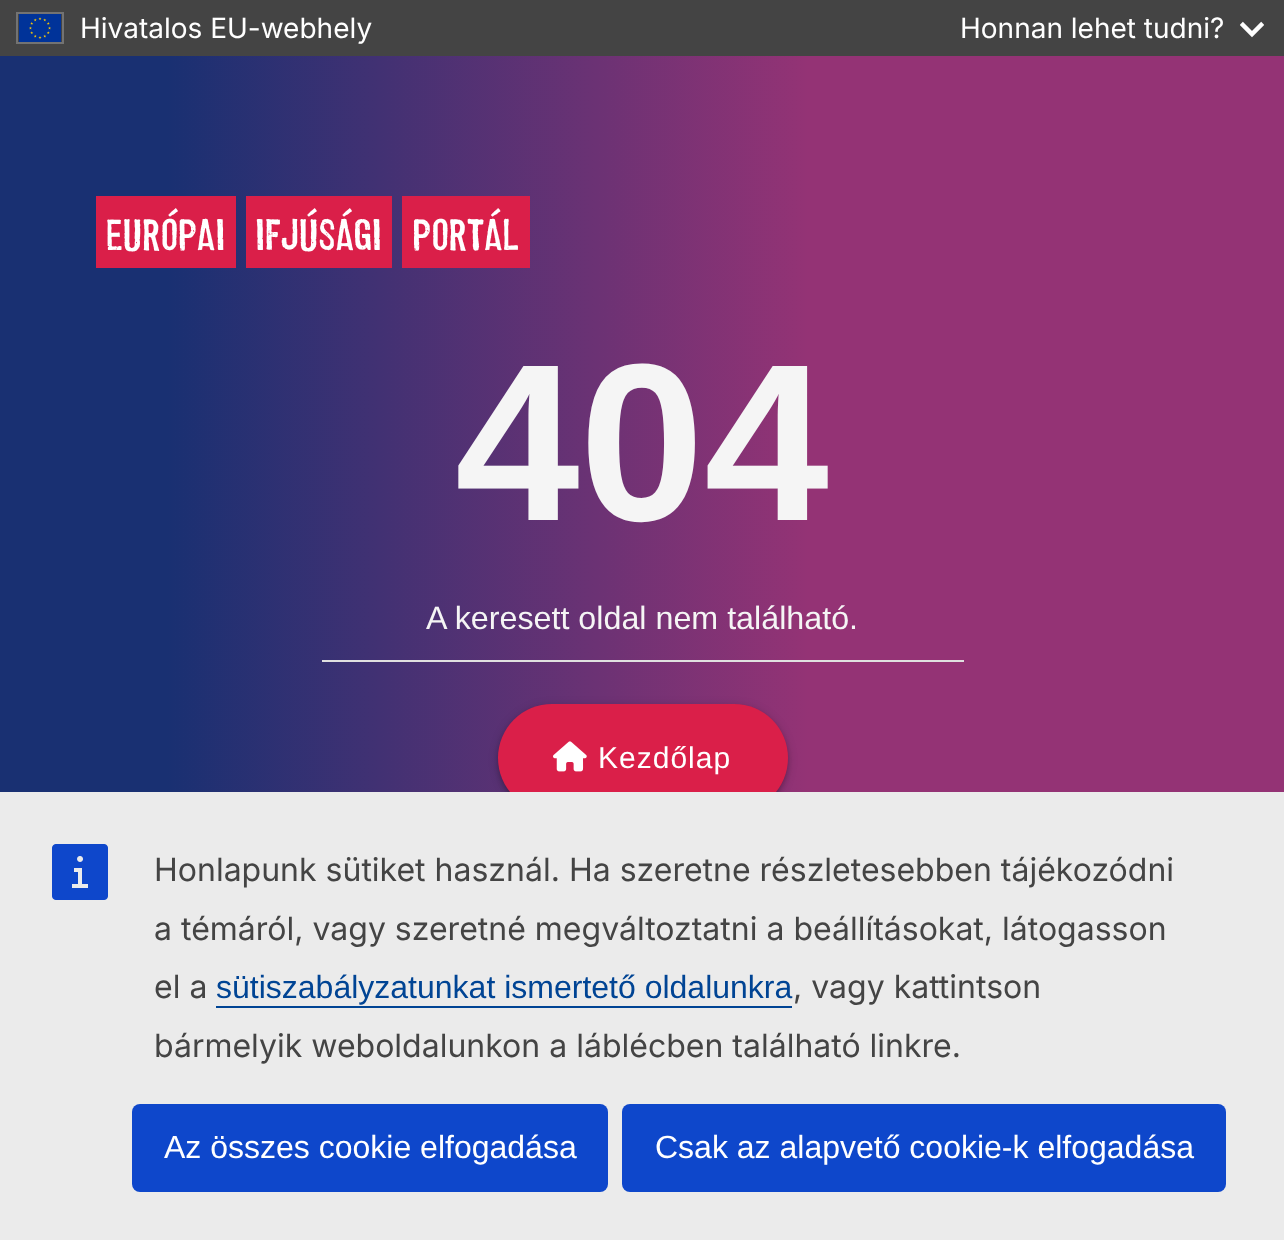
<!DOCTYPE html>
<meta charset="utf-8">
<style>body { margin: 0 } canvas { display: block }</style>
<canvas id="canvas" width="1284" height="1240"></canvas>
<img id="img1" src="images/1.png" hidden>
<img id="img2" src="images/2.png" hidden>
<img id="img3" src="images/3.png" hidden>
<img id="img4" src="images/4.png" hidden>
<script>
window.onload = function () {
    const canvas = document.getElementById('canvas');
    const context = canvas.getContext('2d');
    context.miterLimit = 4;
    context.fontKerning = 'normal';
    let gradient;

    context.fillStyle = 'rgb(255, 255, 255)';
    context.fillRect(0, 0, 1284, 1240);
    context.fillStyle = 'rgb(68, 68, 68)';
    context.fillRect(0, 0, 1284, 56);
    context.strokeStyle = 'rgb(115, 115, 115)';
    context.lineWidth = 2;
    context.strokeRect(17, 13, 46, 30);
    context.drawImage(document.getElementById('img1'), 19, 14, 42, 28);
    context.drawImage(document.getElementById('img2'), 1240, 21, 24, 17);
    gradient = context.createLinearGradient(0, 676, 1284, 676);
    gradient.addColorStop(0.13, 'rgb(25, 48, 114)');
    gradient.addColorStop(0.63, 'rgb(148, 51, 117)');
    context.fillStyle = gradient;
    context.fillRect(0, 56, 1284, 736);
    context.fillStyle = 'rgb(218, 31, 73)';
    context.fillRect(96, 196, 140, 72);
    context.fillRect(246, 196, 146, 72);
    context.fillRect(402, 196, 128, 72);
    context.fillStyle = 'rgb(224, 224, 224)';
    context.fillRect(322, 660, 642, 2);
    context.fillStyle = 'rgba(0, 0, 0, 0.2)';
    context.filter = 'blur(5px)';
    context.beginPath();
    context.roundRect(498, 706, 290, 108, 54);
    context.fill();
    context.filter = 'none';
    context.fillStyle = 'rgba(0, 0, 0, 0.12)';
    context.filter = 'blur(1px)';
    context.beginPath();
    context.roundRect(502, 714, 282, 100, 50);
    context.fill();
    context.filter = 'none';
    context.fillStyle = 'rgba(0, 0, 0, 0.14)';
    context.filter = 'blur(2px)';
    context.beginPath();
    context.roundRect(498, 708, 290, 108, 54);
    context.fill();
    context.filter = 'none';
    context.fillStyle = 'rgb(218, 31, 73)';
    context.beginPath();
    context.roundRect(498, 704, 290, 108, 54);
    context.fill();
    context.drawImage(document.getElementById('img3'), 553, 741, 34, 31);
    context.fillStyle = 'rgb(235, 235, 235)';
    context.fillRect(0, 792, 1284, 448);
    context.drawImage(document.getElementById('img4'), 52, 844, 56, 56);
    context.fillStyle = 'rgb(0, 68, 148)';
    context.fillRect(216, 1006, 576, 2);
    context.fillStyle = 'rgb(14, 71, 203)';
    context.beginPath();
    context.roundRect(132, 1104, 476, 88, 8);
    context.fill();
    context.beginPath();
    context.roundRect(622, 1104, 604, 88, 8);
    context.fill();
    context.font = '28px Inter';
    context.fillStyle = 'rgb(255, 255, 255)';
    context.fillText('Hivatalos EU-webhely', 80, 38);
    context.fillText('Honnan lehet tudni?', 960, 38);
    context.font = '52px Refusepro';
    context.fillText('EURÓPAI', 106, 250);
    context.fillText('IFJÚSÁGI', 255, 250);
    context.fillText('PORTÁL', 412, 250);
    context.font = 'bold 224px Liberation Sans';
    context.fillStyle = 'rgb(245, 245, 245)';
    context.fillText('404', 455, 520);
    context.font = '32.25px Liberation Sans';
    context.fillText('A keresett oldal nem található.', 426, 629);
    context.letterSpacing = '1px';
    context.font = '30px Liberation Sans';
    context.fillStyle = 'rgb(255, 255, 255)';
    context.fillText('Kezdőlap', 598, 768);
    context.letterSpacing = '0px';
    context.font = '32px Inter';
    context.fillStyle = 'rgb(68, 68, 68)';
    context.fillText('Honlapunk sütiket használ. Ha szeretne részletesebben tájékozódni', 154, 881);
    context.fillText('a témáról, vagy szeretné megváltoztatni a beállításokat, látogasson', 154, 940);
    context.fillText('el a', 154, 998);
    context.font = '32px Liberation Sans';
    context.fillStyle = 'rgb(0, 68, 148)';
    context.fillText('sütiszabályzatunkat ismertető oldalunkra', 216, 998);
    context.font = '32px Inter';
    context.fillStyle = 'rgb(68, 68, 68)';
    context.fillText(', vagy kattintson', 793, 998);
    context.fillText('bármelyik weboldalunkon a láblécben található linkre.', 154, 1057);
    context.font = '32px Liberation Sans';
    context.fillStyle = 'rgb(255, 255, 255)';
    context.fillText('Az összes cookie elfogadása', 164, 1158);
    context.fillText('Csak az alapvető cookie-k elfogadása', 655, 1158);
};
</script>
